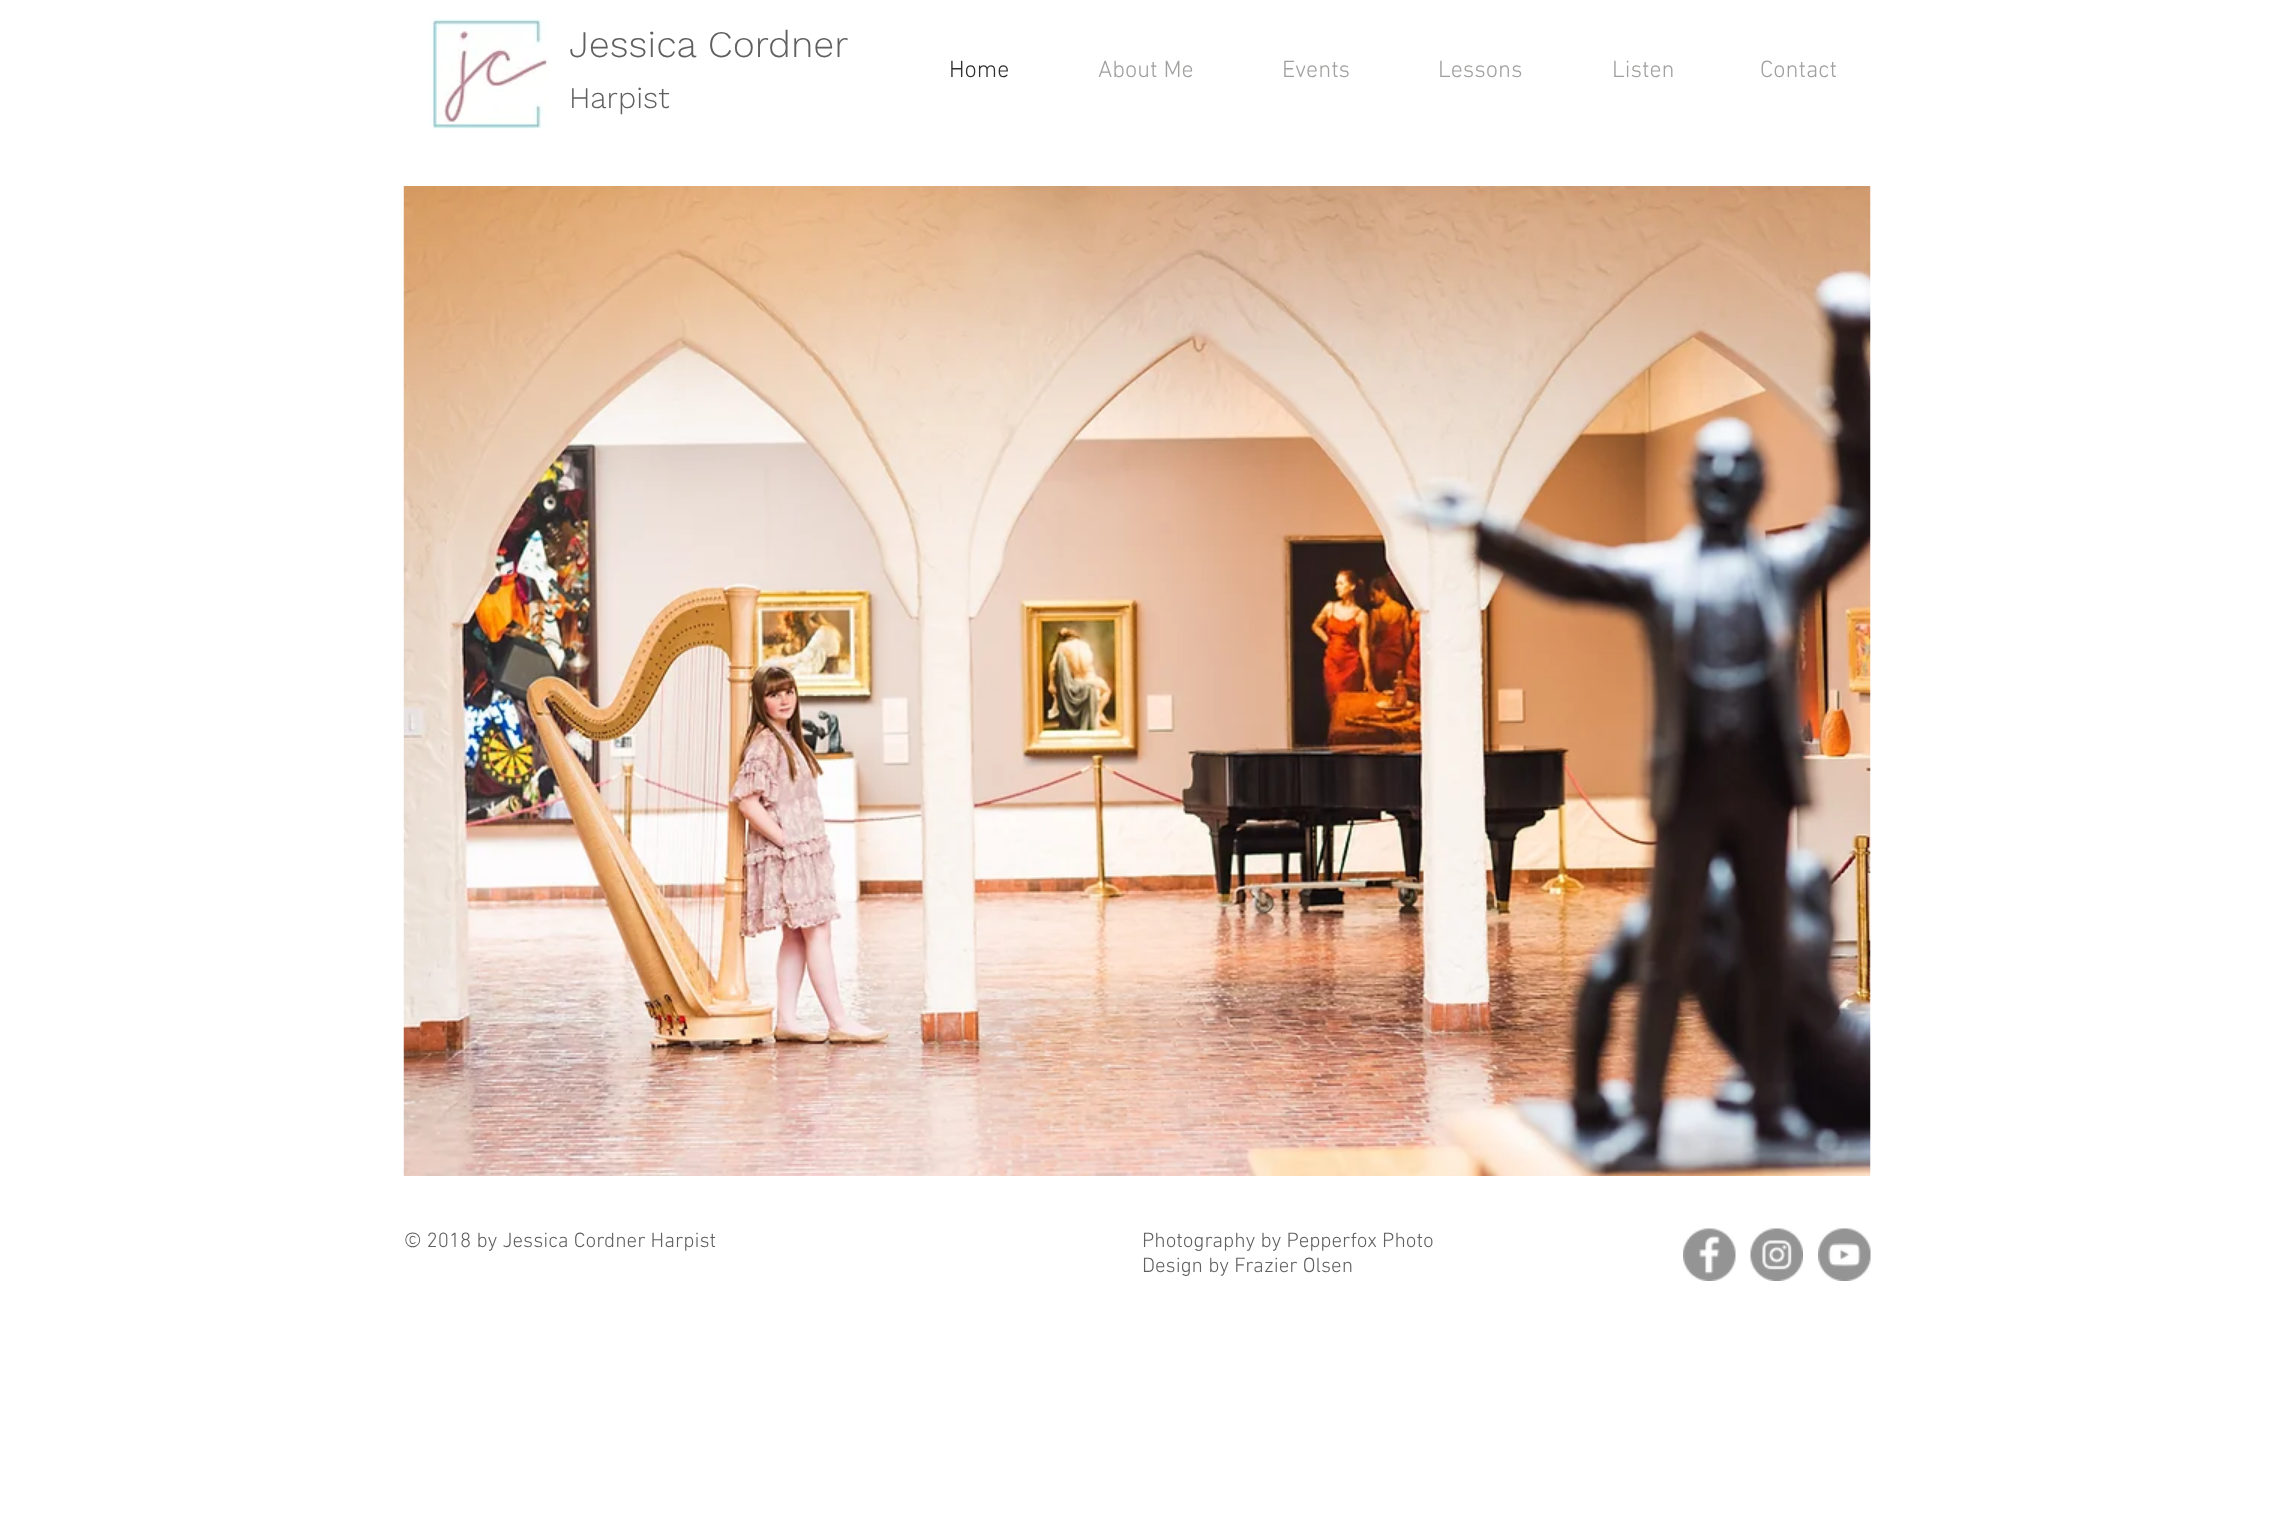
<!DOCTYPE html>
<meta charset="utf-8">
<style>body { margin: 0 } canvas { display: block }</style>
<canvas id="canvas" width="2277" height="1514"></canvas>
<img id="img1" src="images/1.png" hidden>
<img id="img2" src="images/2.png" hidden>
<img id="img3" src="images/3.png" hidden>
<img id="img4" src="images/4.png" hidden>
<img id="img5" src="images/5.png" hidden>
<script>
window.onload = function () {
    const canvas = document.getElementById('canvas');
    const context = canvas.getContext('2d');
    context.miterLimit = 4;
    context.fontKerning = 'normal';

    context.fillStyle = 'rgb(255, 255, 255)';
    context.fillRect(0, 0, 2277, 1514);
    context.drawImage(document.getElementById('img1'), 428, 18, 120, 111);
    context.drawImage(document.getElementById('img2'), 403, 186, 1468, 990);
    context.drawImage(document.getElementById('img3'), 1683, 1228, 53, 53);
    context.drawImage(document.getElementById('img4'), 1750, 1228, 53, 53);
    context.drawImage(document.getElementById('img5'), 1818, 1228, 53, 53);
    context.font = '300 37.5px Work Sans';
    context.fillStyle = 'rgb(96, 94, 94)';
    context.fillText('Jessica Cordner', 569, 57);
    context.font = '300 24px "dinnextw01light"';
    context.fillStyle = 'rgb(47, 46, 46)';
    context.fillText('Home', 949, 77);
    context.fillStyle = 'rgb(160, 160, 159)';
    context.fillText('About Me', 1098, 77);
    context.fillText('Events', 1282, 77);
    context.fillText('Lessons', 1438, 77);
    context.fillText('Listen', 1612, 77);
    context.fillText('Contact', 1760, 77);
    context.font = '300 30px Work Sans';
    context.fillStyle = 'rgb(96, 94, 94)';
    context.fillText('Harpist', 569, 108);
    context.font = '300 21px "dinnextw01light"';
    context.fillText('© 2018 by Jessica Cordner Harpist', 404, 1247);
    context.fillText('Photography by Pepperfox Photo', 1142, 1247);
    context.fillText('Design by Frazier Olsen', 1142, 1272);
};
</script>
